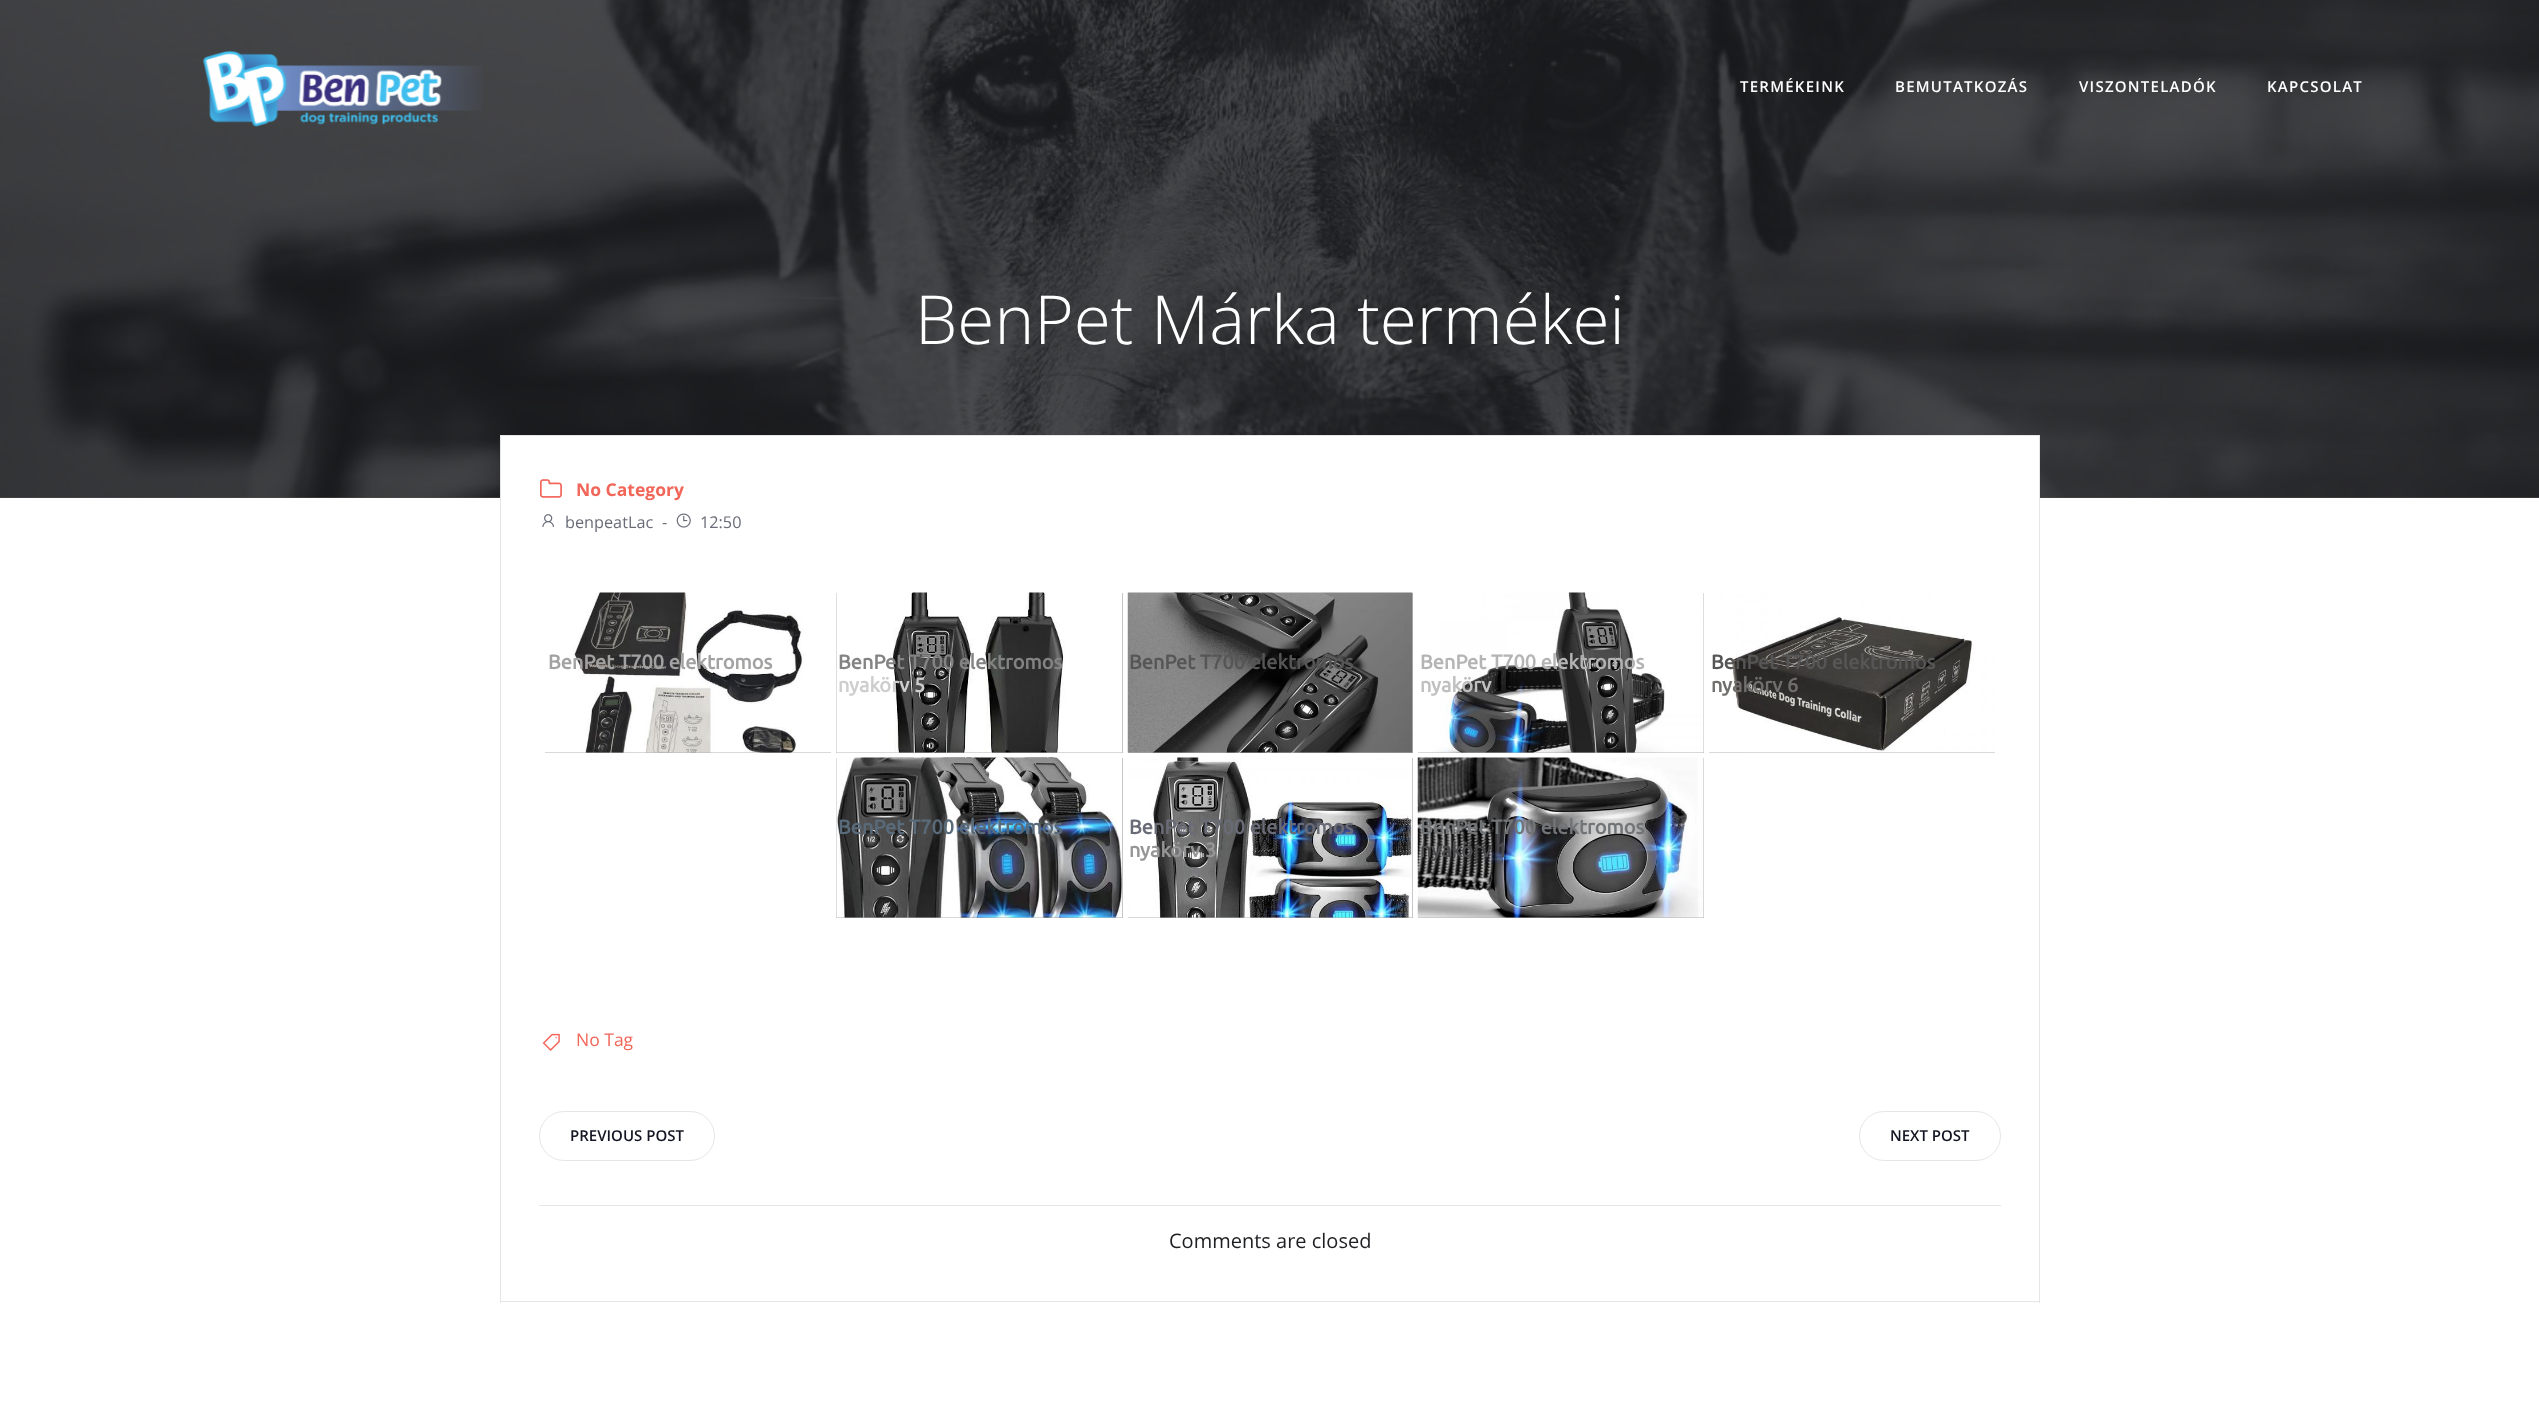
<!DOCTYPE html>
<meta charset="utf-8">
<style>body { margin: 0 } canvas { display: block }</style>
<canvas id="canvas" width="2539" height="1414"></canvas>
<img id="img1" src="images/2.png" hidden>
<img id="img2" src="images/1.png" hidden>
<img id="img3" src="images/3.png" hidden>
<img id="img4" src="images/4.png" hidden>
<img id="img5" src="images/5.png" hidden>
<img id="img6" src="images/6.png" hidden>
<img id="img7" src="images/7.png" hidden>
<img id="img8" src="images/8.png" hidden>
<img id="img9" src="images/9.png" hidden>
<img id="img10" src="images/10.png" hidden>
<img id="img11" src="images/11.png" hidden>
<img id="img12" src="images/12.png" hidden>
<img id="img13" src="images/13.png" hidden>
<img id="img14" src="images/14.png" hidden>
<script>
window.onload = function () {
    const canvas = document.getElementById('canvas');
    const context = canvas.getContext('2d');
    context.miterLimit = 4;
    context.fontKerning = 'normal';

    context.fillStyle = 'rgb(75, 76, 78)';
    context.fillRect(0, 0, 2539, 1414);
    context.drawImage(document.getElementById('img1'), 0, 0, 2539, 498);
    context.drawImage(document.getElementById('img2'), 203, 51, 280, 76);
    context.fillStyle = 'rgb(255, 255, 255)';
    context.fillRect(0, 498, 2539, 916);
    context.fillRect(501, 436, 1538, 62);
    context.fillStyle = 'rgb(230, 230, 230)';
    context.fillRect(500, 435, 1540, 1);
    context.fillRect(2039, 435, 1, 868);
    context.fillRect(500, 435, 1, 771);
    context.drawImage(document.getElementById('img3'), 540, 479, 22, 19);
    context.drawImage(document.getElementById('img4'), 542, 514, 12, 13);
    context.drawImage(document.getElementById('img5'), 676, 513, 15, 15);
    context.fillStyle = 'rgb(179, 179, 179)';
    context.fillRect(545, 752, 286, 1);
    context.drawImage(document.getElementById('img6'), 545, 592, 286, 161);
    context.fillRect(836, 593, 287, 160);
    context.drawImage(document.getElementById('img7'), 836, 592, 287, 161);
    context.fillRect(1128, 593, 285, 160);
    context.drawImage(document.getElementById('img8'), 1127, 592, 286, 161);
    context.fillRect(1418, 593, 286, 160);
    context.drawImage(document.getElementById('img9'), 1418, 592, 286, 161);
    context.fillRect(1709, 752, 286, 1);
    context.drawImage(document.getElementById('img10'), 1709, 593, 286, 160);
    context.fillRect(836, 758, 287, 160);
    context.drawImage(document.getElementById('img11'), 836, 757, 287, 161);
    context.fillRect(1128, 758, 285, 160);
    context.drawImage(document.getElementById('img12'), 1128, 757, 285, 161);
    context.fillRect(1418, 758, 286, 160);
    context.drawImage(document.getElementById('img13'), 1417, 757, 287, 161);
    context.drawImage(document.getElementById('img14'), 542, 1033, 18, 18);
    context.fillStyle = 'rgb(230, 230, 230)';
    context.fillRect(539, 1205, 1462, 1);
    context.beginPath();
    context.roundRect(539.5, 1111.5, 175, 49, 24.5);
    context.strokeStyle = 'rgb(230, 230, 230)';
    context.stroke();
    context.beginPath();
    context.roundRect(1859.5, 1111.5, 141, 49, 24.5);
    context.stroke();
    context.fillRect(500, 1301, 1540, 1);
    context.fillRect(500, 1206, 1, 97);
    context.letterSpacing = '1.25px';
    context.font = '600 15px Open Sans';
    context.fillStyle = 'rgb(255, 255, 255)';
    context.fillText('TERMÉKEINK', 1740, 92);
    context.fillText('BEMUTATKOZÁS', 1895, 92);
    context.fillText('VISZONTELADÓK', 2079, 92);
    context.fillText('KAPCSOLAT', 2267, 92);
    context.letterSpacing = '0px';
    context.font = '300 67.5px Open Sans';
    context.fillText('BenPet Márka termékei', 915, 344);
    context.font = 'bold 17.5px Open Sans';
    context.fillStyle = 'rgb(242, 101, 89)';
    context.fillText('No Category', 576, 496);
    context.font = '16.25px Open Sans';
    context.fillStyle = 'rgb(105, 108, 119)';
    context.fillText('benpeatLac', 565, 528);
    context.fillText('-', 662, 528);
    context.fillText('12:50', 700, 528);
    context.font = 'bold 20px Ubuntu';
    context.fillStyle = 'rgb(163, 162, 162)';
    context.fillText('BenPet T700 elektromos', 548, 669);
    context.fillStyle = 'rgb(131, 131, 131)';
    context.fillText('BenPet T700 elektromos', 838, 669);
    context.fillStyle = 'rgb(206, 206, 206)';
    context.fillText('nyakörv 5', 838, 692);
    context.fillStyle = 'rgb(86, 86, 86)';
    context.fillText('BenPet T700 elektromos', 1129, 669);
    context.fillStyle = 'rgb(180, 180, 180)';
    context.fillText('BenPet T700 elektromos', 1420, 669);
    context.fillStyle = 'rgb(192, 192, 192)';
    context.fillText('nyakörv', 1420, 692);
    context.fillStyle = 'rgb(86, 86, 86)';
    context.fillText('BenPet T700 elektromos', 1711, 669);
    context.fillStyle = 'rgb(112, 110, 108)';
    context.fillText('nyakörv 6', 1711, 692);
    context.fillStyle = 'rgb(89, 107, 122)';
    context.fillText('BenPet T700 elektromos', 838, 834);
    context.fillStyle = 'rgb(105, 108, 119)';
    context.fillText('BenPet T700 elektromos', 1129, 834);
    context.fillStyle = 'rgb(150, 150, 150)';
    context.fillText('nyakörv 3', 1129, 857);
    context.fillStyle = 'rgb(114, 117, 120)';
    context.fillText('BenPet T700 elektromos', 1420, 834);
    context.fillStyle = 'rgb(76, 76, 78)';
    context.fillText('nyakörv 1', 1420, 857);
    context.font = '17.5px Open Sans';
    context.fillStyle = 'rgb(242, 101, 89)';
    context.fillText('No Tag', 576, 1046);
    context.font = '600 15px Open Sans';
    context.fillStyle = 'rgb(19, 22, 34)';
    context.fillText('PREVIOUS POST', 570, 1141);
    context.fillText('NEXT POST', 1890, 1141);
    context.font = '20px Open Sans';
    context.fillStyle = 'rgb(30, 31, 34)';
    context.fillText('Comments are closed', 1169, 1248);
};
</script>
